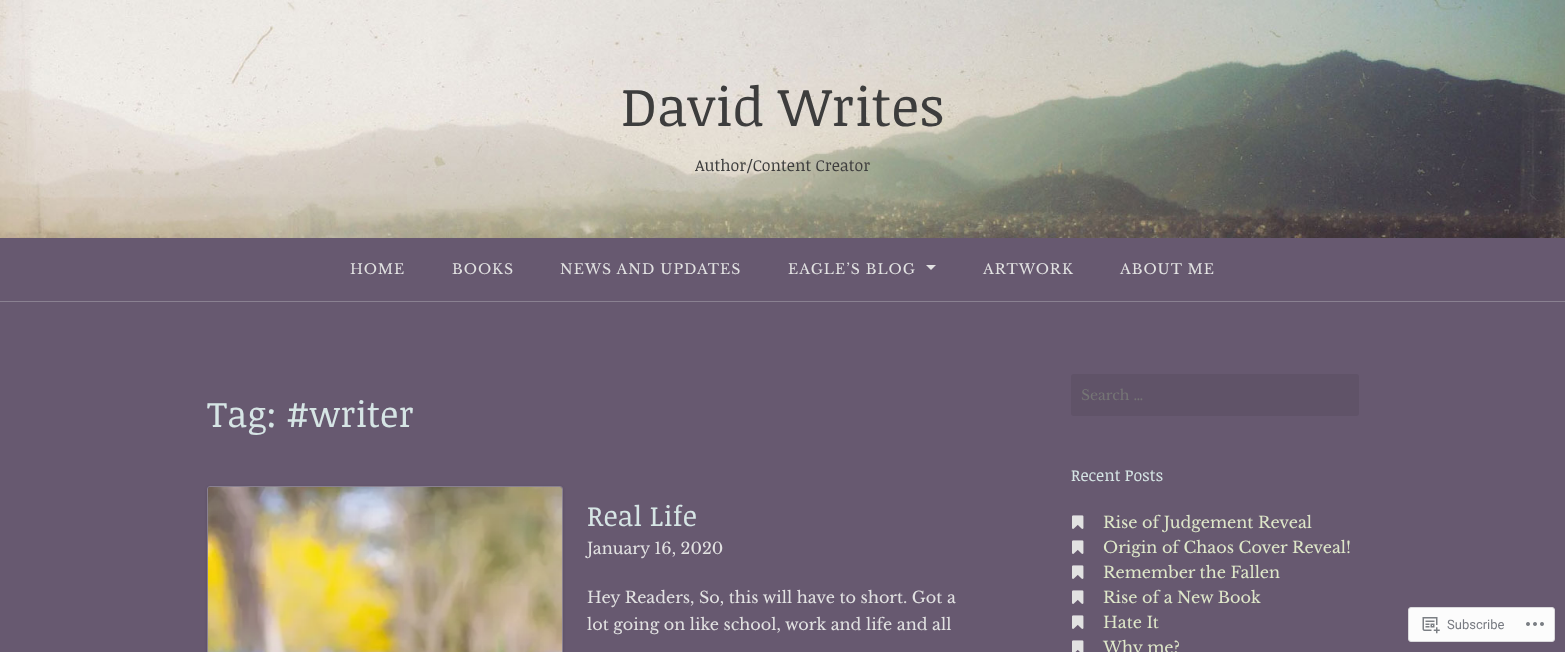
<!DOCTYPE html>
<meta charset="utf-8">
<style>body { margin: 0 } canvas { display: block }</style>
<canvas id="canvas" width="1565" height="652"></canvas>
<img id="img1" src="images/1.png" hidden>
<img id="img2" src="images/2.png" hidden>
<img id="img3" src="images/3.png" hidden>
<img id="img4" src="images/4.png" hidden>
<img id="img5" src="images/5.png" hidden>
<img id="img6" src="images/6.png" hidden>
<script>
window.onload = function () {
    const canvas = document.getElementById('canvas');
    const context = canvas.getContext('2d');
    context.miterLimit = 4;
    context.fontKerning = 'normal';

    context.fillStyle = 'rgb(103, 89, 112)';
    context.fillRect(0, 0, 1565, 652);
    context.drawImage(document.getElementById('img1'), 0, 0, 1565, 238);
    context.fillStyle = 'rgb(138, 129, 145)';
    context.fillRect(0, 301, 1565, 1);
    context.fillStyle = 'rgb(226, 226, 226)';
    context.beginPath();
    context.moveTo(926, 265);
    context.lineTo(936, 265);
    context.lineTo(931, 270);
    context.closePath();
    context.fill();
    context.fillStyle = 'rgba(0, 0, 0, 0.12)';
    context.filter = 'blur(1.5px)';
    context.beginPath();
    context.roundRect(207, 487, 356, 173, 3);
    context.fill();
    context.filter = 'none';
    context.beginPath();
    context.roundRect(207.5, 486.5, 355, 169, 2.5);
    context.strokeStyle = 'rgb(138, 129, 145)';
    context.stroke();
    context.drawImage(document.getElementById('img2'), 208, 487, 354, 165);
    context.fillStyle = 'rgb(96, 83, 104)';
    context.beginPath();
    context.roundRect(1071, 374, 288, 42, 3);
    context.fill();
    context.drawImage(document.getElementById('img3'), 1072, 515, 12, 14);
    context.drawImage(document.getElementById('img3'), 1072, 540, 12, 14);
    context.drawImage(document.getElementById('img3'), 1072, 565, 12, 14);
    context.drawImage(document.getElementById('img3'), 1072, 590, 12, 14);
    context.drawImage(document.getElementById('img3'), 1072, 615, 12, 14);
    context.drawImage(document.getElementById('img4'), 1072, 640, 12, 12);
    context.fillStyle = 'rgb(252, 252, 252)';
    context.beginPath();
    context.roundRect(1408.5, 607.5, 146, 34, 2.5);
    context.fill();
    context.strokeStyle = 'rgb(218, 217, 220)';
    context.stroke();
    context.drawImage(document.getElementById('img5'), 1422, 617, 18, 17);
    context.drawImage(document.getElementById('img6'), 1526, 622, 18, 4);
    context.font = '54px Noticia Text';
    context.fillStyle = 'rgb(61, 61, 61)';
    context.fillText('David Writes', 621, 126);
    context.font = '16px Noticia Text';
    context.fillText('Author/Content Creator', 695, 171);
    context.letterSpacing = '1px';
    context.font = '14px Libre Baskerville';
    context.fillStyle = 'rgb(226, 226, 226)';
    context.fillText('HOME', 350, 274);
    context.fillText('BOOKS', 452, 274);
    context.fillText('NEWS AND UPDATES', 560, 274);
    context.fillText('EAGLE’S BLOG', 788, 274);
    context.fillText('ARTWORK', 983, 274);
    context.fillText('ABOUT ME', 1120, 274);
    context.letterSpacing = '0px';
    context.font = '36px Noticia Text';
    context.fillStyle = 'rgb(214, 229, 229)';
    context.fillText('Tag: #writer', 207, 427);
    context.font = '28px Noticia Text';
    context.fillText('Real Life', 587, 526);
    context.font = '16px Libre Baskerville';
    context.fillStyle = 'rgb(226, 226, 226)';
    context.fillText('January 16, 2020', 587, 554);
    context.fillText('Hey Readers, So, this will have to short. Got a', 587, 603);
    context.fillText('lot going on like school, work and life and all', 587, 630);
    context.font = '14px Libre Baskerville';
    context.fillStyle = 'rgb(117, 117, 117)';
    context.fillText('Search …', 1081, 400);
    context.font = '16px Noticia Text';
    context.fillStyle = 'rgb(214, 229, 229)';
    context.fillText('Recent Posts', 1071, 481);
    context.font = '16px Libre Baskerville';
    context.fillStyle = 'rgb(222, 231, 201)';
    context.fillText('Rise of Judgement Reveal', 1103, 528);
    context.fillText('Origin of Chaos Cover Reveal!', 1103, 553);
    context.fillText('Remember the Fallen', 1103, 578);
    context.fillText('Rise of a New Book', 1103, 603);
    context.fillText('Hate It', 1103, 628);
    context.fillText('Why me?', 1103, 653);
    context.font = '13px Roboto';
    context.fillStyle = 'rgb(120, 123, 130)';
    context.fillText('Subscribe', 1447, 629);
};
</script>
